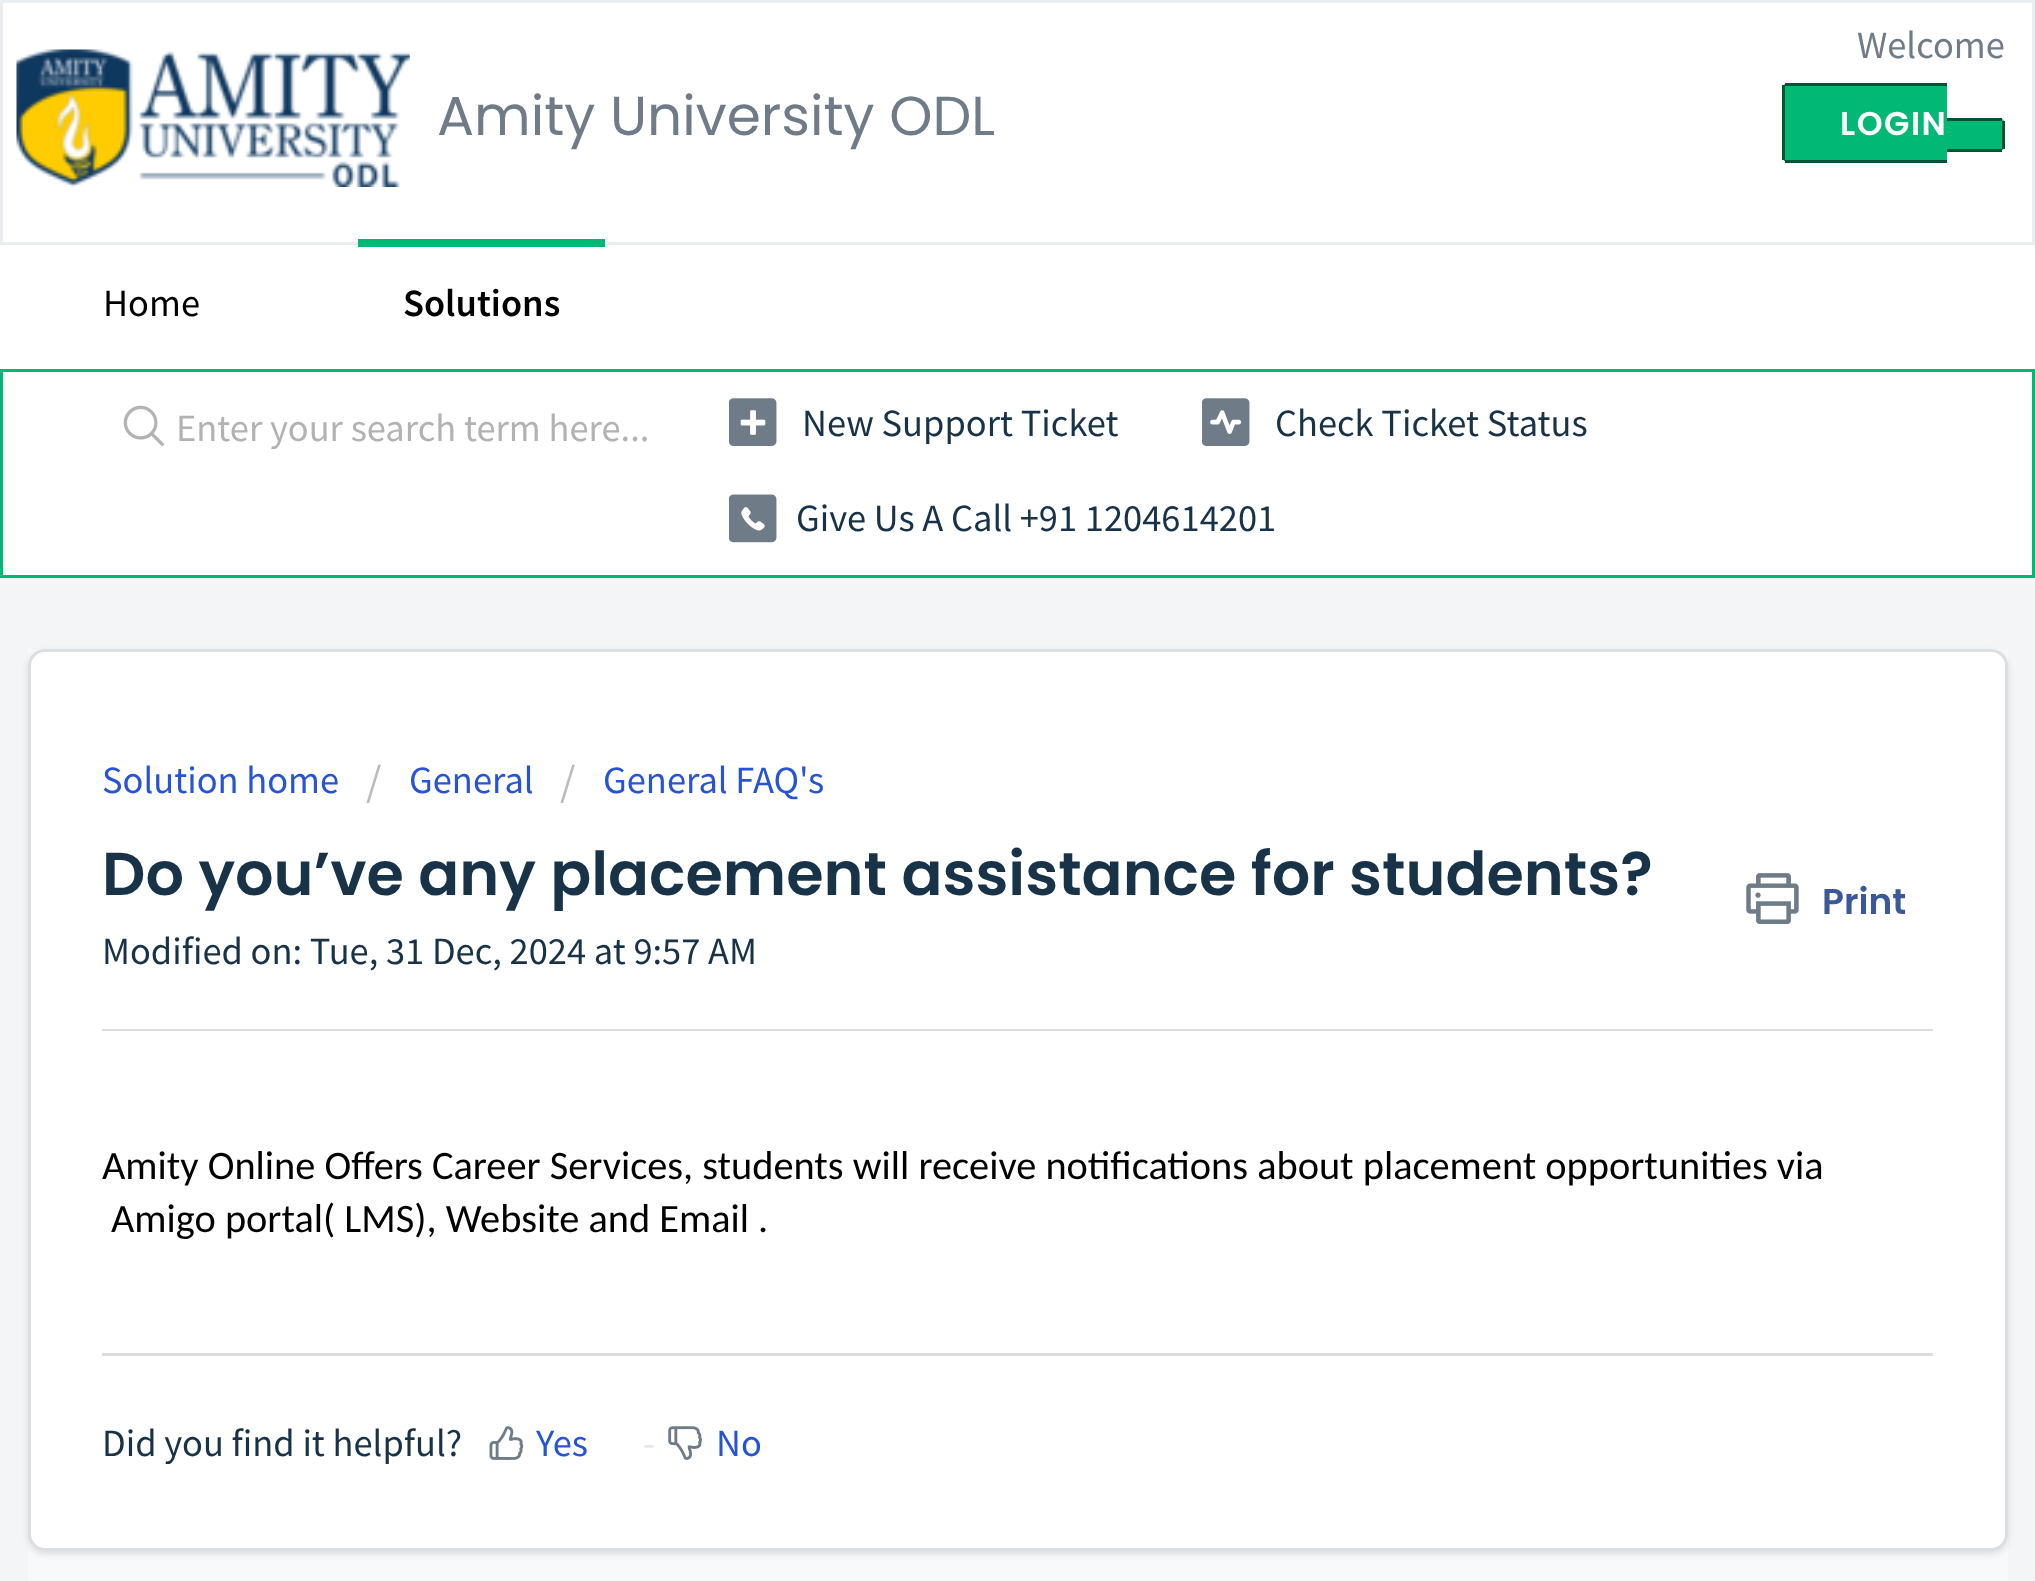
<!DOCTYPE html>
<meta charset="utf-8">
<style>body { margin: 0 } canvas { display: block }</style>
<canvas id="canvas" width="2035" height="1581"></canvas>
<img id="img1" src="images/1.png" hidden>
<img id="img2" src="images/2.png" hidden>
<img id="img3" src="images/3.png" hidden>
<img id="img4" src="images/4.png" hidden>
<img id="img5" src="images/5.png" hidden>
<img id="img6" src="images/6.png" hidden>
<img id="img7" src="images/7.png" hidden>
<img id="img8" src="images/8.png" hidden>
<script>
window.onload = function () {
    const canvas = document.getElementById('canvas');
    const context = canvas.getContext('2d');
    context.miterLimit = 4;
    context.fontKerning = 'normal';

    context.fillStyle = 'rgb(243, 245, 247)';
    context.fillRect(0, 0, 2035, 1581);
    context.fillStyle = 'rgb(255, 255, 255)';
    context.beginPath();
    context.rect(1.5, 1.5, 2032, 242);
    context.fill();
    context.strokeStyle = 'rgb(235, 238, 240)';
    context.lineWidth = 3;
    context.stroke();
    context.drawImage(document.getElementById('img1'), 16, 49, 394, 138);
    context.fillStyle = 'rgb(2, 184, 117)';
    context.beginPath();
    context.roundRect(1782, 83, 165, 79, [6, 0, 0, 6]);
    context.fill();
    context.fillStyle = 'rgb(1, 83, 53)';
    context.fillRect(1785, 83, 162, 3);
    context.fillRect(1785, 160, 162, 3);
    context.fillRect(1782, 85, 3, 75);
    context.fillStyle = 'rgb(2, 184, 117)';
    context.beginPath();
    context.roundRect(1947, 118, 58, 33, [0, 6, 6, 0]);
    context.fill();
    context.fillStyle = 'rgb(1, 83, 53)';
    context.fillRect(1947, 118, 55, 3);
    context.fillRect(2002, 121, 3, 28);
    context.fillRect(1947, 149, 55, 3);
    context.fillStyle = 'rgb(255, 255, 255)';
    context.fillRect(0, 245, 2035, 124);
    context.fillStyle = 'rgb(2, 184, 117)';
    context.fillRect(358, 239, 247, 8);
    context.fillStyle = 'rgb(255, 255, 255)';
    context.beginPath();
    context.rect(1.5, 370.5, 2032, 206);
    context.fill();
    context.strokeStyle = 'rgb(2, 184, 117)';
    context.stroke();
    context.drawImage(document.getElementById('img2'), 123, 405, 41, 41);
    context.drawImage(document.getElementById('img3'), 729, 398, 48, 48);
    context.drawImage(document.getElementById('img4'), 1202, 398, 48, 48);
    context.drawImage(document.getElementById('img5'), 729, 494, 48, 49);
    context.fillStyle = 'rgb(248, 249, 250)';
    context.fillRect(28, 649, 1980, 932);
    context.fillStyle = 'rgba(63, 63, 68, 0.15)';
    context.filter = 'blur(3px)';
    context.beginPath();
    context.roundRect(28, 652, 1980, 902, 17);
    context.fill();
    context.filter = 'none';
    context.fillStyle = 'rgb(255, 255, 255)';
    context.beginPath();
    context.roundRect(29.5, 650.5, 1977, 899, 15.5);
    context.fill();
    context.strokeStyle = 'rgb(218, 223, 227)';
    context.stroke();
    context.drawImage(document.getElementById('img6'), 1746, 873, 53, 51);
    context.fillStyle = 'rgb(220, 220, 220)';
    context.fillRect(102, 1029, 1831, 2);
    context.fillRect(102, 1353, 1831, 3);
    context.drawImage(document.getElementById('img7'), 489, 1426, 35, 34);
    context.drawImage(document.getElementById('img8'), 668, 1426, 34, 34);
    context.font = '55px Poppins';
    context.fillStyle = 'rgb(111, 124, 135)';
    context.fillText('Amity University ODL', 437, 135);
    context.font = '38.5px Source Sans Pro';
    context.fillText('Welcome', 1857, 58);
    context.letterSpacing = '1.5px';
    context.font = '600 33px Poppins';
    context.fillStyle = 'rgb(255, 255, 255)';
    context.fillText('LOGIN', 1840, 135);
    context.letterSpacing = '0px';
    context.font = '38.5px Source Sans Pro';
    context.fillStyle = 'rgb(0, 0, 0)';
    context.fillText('Home', 103, 316);
    context.font = '600 38.5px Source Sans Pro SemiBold';
    context.fillText('Solutions', 403, 316);
    context.font = '38.5px Source Sans Pro';
    context.fillStyle = 'rgb(178, 178, 178)';
    context.fillText('Enter your search term here...', 176, 441);
    context.fillStyle = 'rgb(24, 50, 71)';
    context.fillText('New Support Ticket', 802, 436);
    context.fillText('Check Ticket Status', 1275, 436);
    context.fillText('Give Us A Call +91 1204614201', 796, 531);
    context.fillStyle = 'rgb(39, 83, 215)';
    context.fillText('Solution home', 102, 793);
    context.font = '44px Source Sans Pro';
    context.fillStyle = 'rgb(187, 187, 187)';
    context.fillText('/', 366, 796);
    context.font = '38.5px Source Sans Pro';
    context.fillStyle = 'rgb(39, 83, 215)';
    context.fillText('General', 409, 793);
    context.font = '44px Source Sans Pro';
    context.fillStyle = 'rgb(187, 187, 187)';
    context.fillText('/', 560, 796);
    context.font = '38.5px Source Sans Pro';
    context.fillStyle = 'rgb(39, 83, 215)';
    context.fillText('General FAQ\'s', 603, 793);
    context.font = '600 60.5px Poppins';
    context.fillStyle = 'rgb(24, 50, 71)';
    context.fillText('Do you’ve any placement assistance for students?', 102, 895);
    context.font = '600 36px Poppins';
    context.fillStyle = 'rgb(59, 89, 152)';
    context.fillText('Print', 1822, 914);
    context.font = '38.5px Source Sans Pro';
    context.fillStyle = 'rgb(24, 50, 71)';
    context.fillText('Modified on: Tue, 31 Dec, 2024 at 9:57 AM', 102, 964);
    context.font = '40.35px Carlito';
    context.fillStyle = 'rgb(0, 0, 0)';
    context.fillText('Amity Online Offers Career Services, students will receive notifications about placement opportunities via', 102, 1179);
    context.fillText('Amigo portal( LMS), Website and Email .', 111, 1232);
    context.font = '38.5px Source Sans Pro';
    context.fillStyle = 'rgb(24, 50, 71)';
    context.fillText('Did you find it helpful?', 102, 1456);
    context.fillStyle = 'rgb(39, 83, 215)';
    context.fillText('Yes', 536, 1456);
    context.fillStyle = 'rgb(229, 229, 229)';
    context.fillText('-', 643, 1456);
    context.fillStyle = 'rgb(39, 83, 215)';
    context.fillText('No', 716, 1456);
};
</script>
